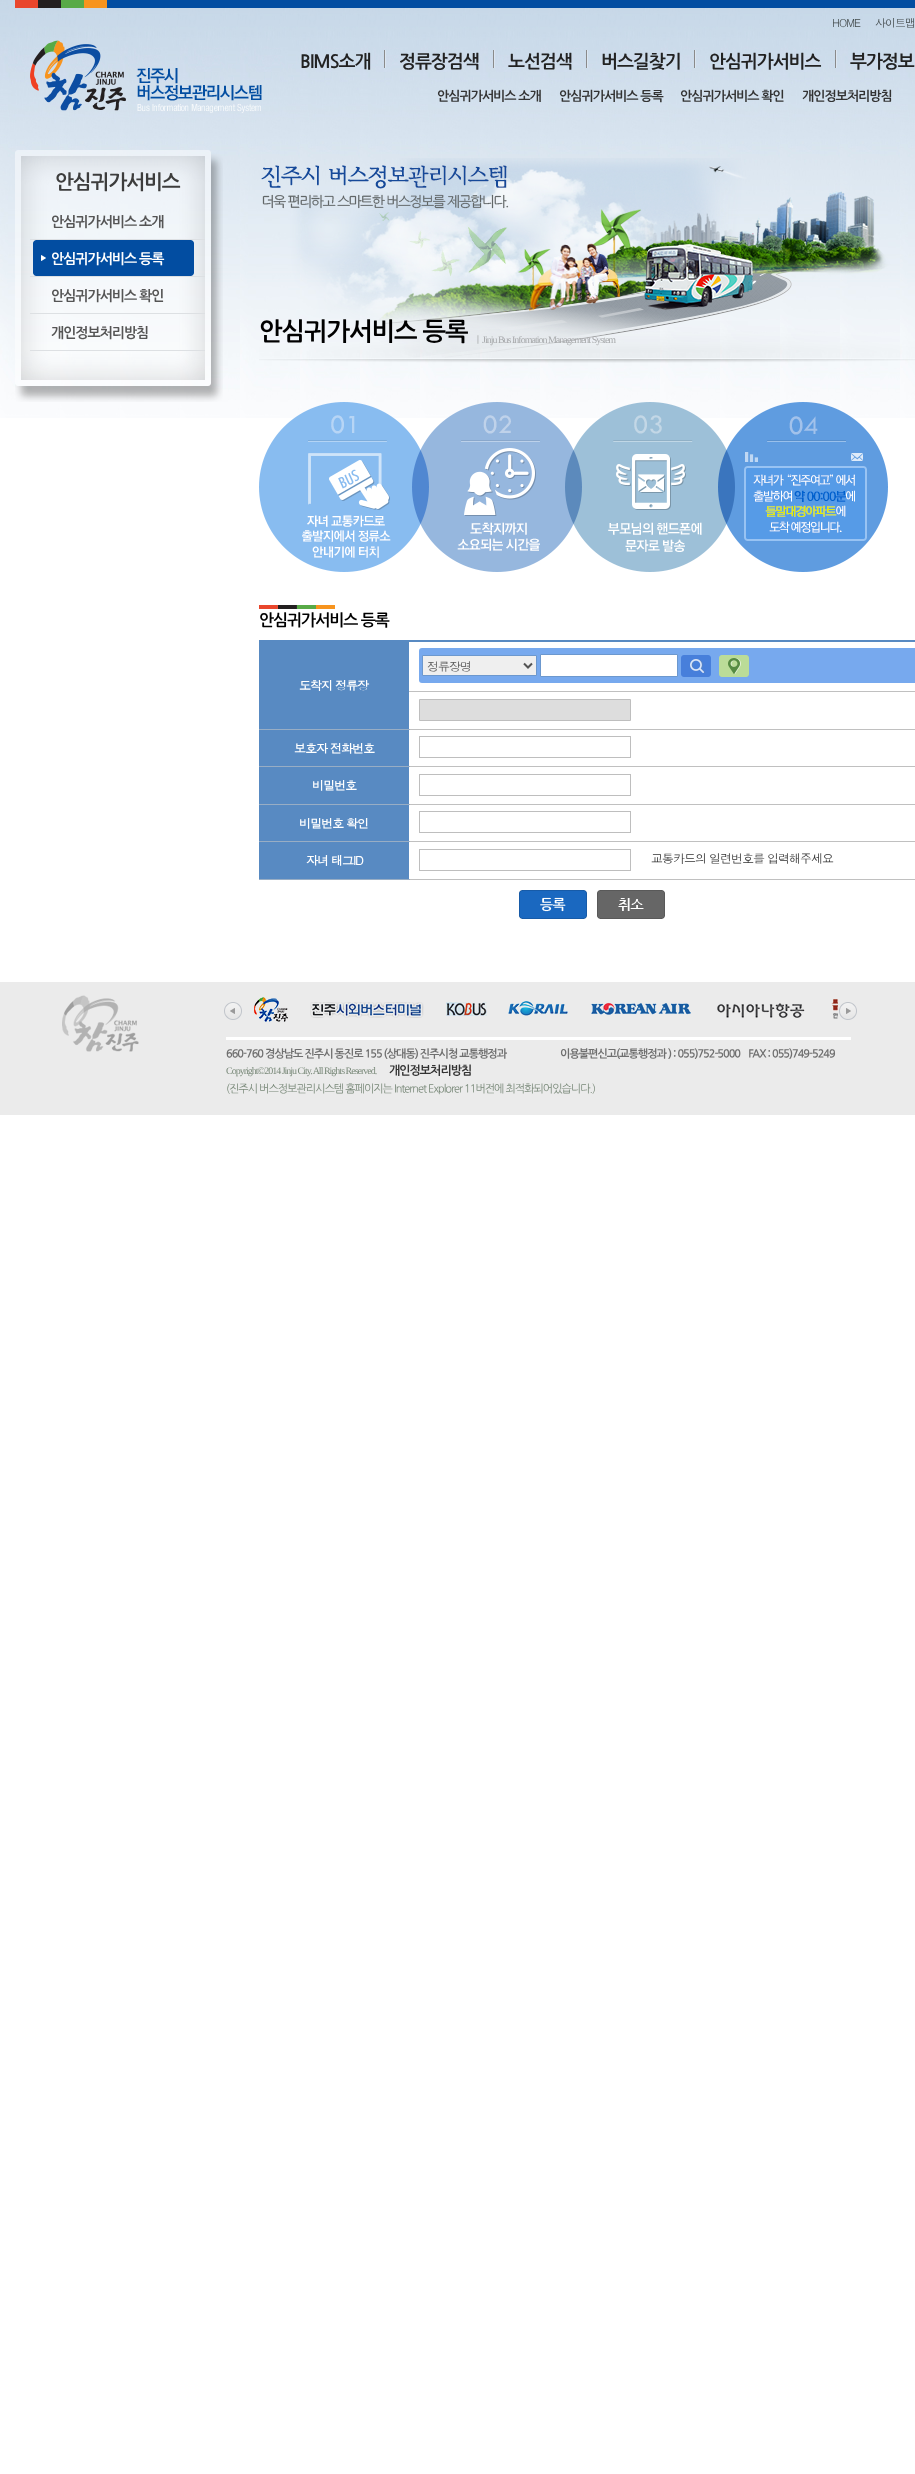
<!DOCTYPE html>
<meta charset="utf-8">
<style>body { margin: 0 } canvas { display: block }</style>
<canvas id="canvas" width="915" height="2474"></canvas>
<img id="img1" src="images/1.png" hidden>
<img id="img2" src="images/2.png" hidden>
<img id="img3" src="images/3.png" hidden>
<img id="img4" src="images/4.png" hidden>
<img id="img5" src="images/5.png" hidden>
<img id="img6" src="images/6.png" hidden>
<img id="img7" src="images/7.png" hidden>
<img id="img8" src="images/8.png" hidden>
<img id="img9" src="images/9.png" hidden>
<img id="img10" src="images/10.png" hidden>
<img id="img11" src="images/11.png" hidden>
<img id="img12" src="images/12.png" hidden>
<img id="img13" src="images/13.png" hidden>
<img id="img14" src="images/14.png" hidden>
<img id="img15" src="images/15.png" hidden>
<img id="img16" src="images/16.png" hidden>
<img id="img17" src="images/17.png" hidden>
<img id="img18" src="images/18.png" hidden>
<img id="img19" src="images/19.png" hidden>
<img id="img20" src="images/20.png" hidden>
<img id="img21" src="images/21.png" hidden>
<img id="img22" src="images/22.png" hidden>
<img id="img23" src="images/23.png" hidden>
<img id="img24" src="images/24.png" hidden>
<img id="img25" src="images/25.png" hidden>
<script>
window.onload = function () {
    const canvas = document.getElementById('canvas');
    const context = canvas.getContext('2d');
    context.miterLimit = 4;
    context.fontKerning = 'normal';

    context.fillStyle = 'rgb(255, 255, 255)';
    context.fillRect(0, 0, 915, 2474);
    context.drawImage(document.getElementById('img1'), 0, 0, 915, 418);
    context.drawImage(document.getElementById('img2'), 15, 0, 900, 8);
    context.drawImage(document.getElementById('img3'), 30, 40, 232, 73);
    context.drawImage(document.getElementById('img4'), 384, 50, 2, 18);
    context.drawImage(document.getElementById('img4'), 493, 50, 2, 18);
    context.drawImage(document.getElementById('img4'), 586, 50, 2, 18);
    context.drawImage(document.getElementById('img4'), 694, 50, 2, 18);
    context.drawImage(document.getElementById('img4'), 835, 50, 2, 18);
    context.drawImage(document.getElementById('img5'), 15, 351, 208, 51);
    context.drawImage(document.getElementById('img6'), 15, 150, 208, 53);
    context.drawImage(document.getElementById('img7'), 15, 203, 208, 148);
    context.fillStyle = 'rgb(221, 224, 227)';
    context.fillRect(30, 239, 175, 1);
    context.fillRect(30, 276, 175, 1);
    context.drawImage(document.getElementById('img8'), 33, 240, 161, 36);
    context.fillRect(30, 313, 175, 1);
    context.fillRect(30, 350, 175, 1);
    context.drawImage(document.getElementById('img9'), 259, 158, 656, 205);
    context.drawImage(document.getElementById('img10'), 259, 402, 629, 170);
    context.drawImage(document.getElementById('img11'), 259, 605, 76, 4);
    context.fillStyle = 'rgb(88, 138, 194)';
    context.fillRect(259, 640, 656, 2);
    context.fillStyle = 'rgb(192, 192, 192)';
    context.fillRect(409, 691, 506, 1);
    context.fillStyle = 'rgb(119, 169, 238)';
    context.beginPath();
    context.roundRect(419, 648, 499, 35, 3);
    context.fill();
    context.fillStyle = 'rgb(239, 239, 239)';
    context.beginPath();
    context.rect(422.5, 655.5, 114, 20);
    context.fill();
    context.strokeStyle = 'rgb(108, 152, 206)';
    context.stroke();
    context.beginPath();
    context.moveTo(524, 663.5);
    context.lineTo(528, 667.5);
    context.lineTo(532, 663.5);
    context.strokeStyle = 'rgb(83, 83, 83)';
    context.lineWidth = 2;
    context.stroke();
    context.fillStyle = 'rgb(255, 255, 255)';
    context.beginPath();
    context.rect(540.5, 654.5, 137, 22);
    context.fill();
    context.strokeStyle = 'rgb(108, 152, 206)';
    context.lineWidth = 1;
    context.stroke();
    context.drawImage(document.getElementById('img12'), 681, 655, 30, 22);
    context.drawImage(document.getElementById('img13'), 719, 655, 30, 22);
    context.fillStyle = 'rgb(88, 138, 194)';
    context.fillRect(259, 642, 150, 87);
    context.fillStyle = 'rgb(192, 192, 192)';
    context.fillRect(409, 729, 506, 1);
    context.fillStyle = 'rgb(152, 173, 196)';
    context.fillRect(259, 729, 151, 1);
    context.fillStyle = 'rgb(221, 221, 221)';
    context.beginPath();
    context.rect(419.5, 699.5, 211, 21);
    context.fill();
    context.strokeStyle = 'rgb(190, 190, 190)';
    context.stroke();
    context.fillStyle = 'rgb(88, 138, 194)';
    context.fillRect(259, 730, 150, 36);
    context.fillStyle = 'rgb(192, 192, 192)';
    context.fillRect(409, 766, 506, 1);
    context.fillStyle = 'rgb(152, 173, 196)';
    context.fillRect(259, 766, 151, 1);
    context.strokeRect(419.5, 736.5, 211, 21);
    context.fillStyle = 'rgb(88, 138, 194)';
    context.fillRect(259, 767, 150, 37);
    context.fillStyle = 'rgb(192, 192, 192)';
    context.fillRect(409, 804, 506, 1);
    context.fillStyle = 'rgb(152, 173, 196)';
    context.fillRect(259, 804, 151, 1);
    context.strokeRect(419.5, 774.5, 211, 21);
    context.fillStyle = 'rgb(88, 138, 194)';
    context.fillRect(259, 805, 150, 36);
    context.fillStyle = 'rgb(192, 192, 192)';
    context.fillRect(409, 841, 506, 1);
    context.fillStyle = 'rgb(152, 173, 196)';
    context.fillRect(259, 841, 151, 1);
    context.strokeRect(419.5, 811.5, 211, 21);
    context.fillStyle = 'rgb(88, 138, 194)';
    context.fillRect(259, 842, 150, 37);
    context.fillStyle = 'rgb(192, 192, 192)';
    context.fillRect(409, 879, 506, 1);
    context.fillStyle = 'rgb(152, 173, 196)';
    context.fillRect(259, 879, 151, 1);
    context.strokeRect(419.5, 849.5, 211, 21);
    context.drawImage(document.getElementById('img14'), 519, 890, 68, 29);
    context.drawImage(document.getElementById('img15'), 597, 890, 68, 29);
    context.fillStyle = 'rgb(235, 235, 235)';
    context.fillRect(0, 982, 915, 133);
    context.drawImage(document.getElementById('img16'), 62, 995, 77, 57);
    context.drawImage(document.getElementById('img17'), 224, 1002, 18, 18);
    context.drawImage(document.getElementById('img18'), 254, 997, 34, 25);
    context.drawImage(document.getElementById('img19'), 310, 1002, 114, 16);
    context.drawImage(document.getElementById('img20'), 446, 1002, 41, 14);
    context.drawImage(document.getElementById('img21'), 508, 1001, 60, 15);
    context.drawImage(document.getElementById('img22'), 591, 1002, 100, 13);
    context.drawImage(document.getElementById('img23'), 717, 1003, 88, 15);
    context.drawImage(document.getElementById('img24'), 831, 999, 7, 20);
    context.drawImage(document.getElementById('img25'), 839, 1002, 18, 18);
    context.fillStyle = 'rgb(255, 255, 255)';
    context.fillRect(226, 1037, 625, 3);
    context.letterSpacing = '-1px';
    context.font = '11px Dotum';
    context.fillStyle = 'rgb(67, 75, 76)';
    context.fillText('HOME', 832, 27);
    context.fillText('사이트맵', 875, 27);
    context.font = 'bold 18px NanumGothic';
    context.fillStyle = 'rgb(34, 34, 34)';
    context.fillText('BIMS소개', 300, 67);
    context.fillText('정류장검색', 399, 67);
    context.fillText('노선검색', 508, 67);
    context.fillText('버스길찾기', 601, 67);
    context.fillText('안심귀가서비스', 709, 67);
    context.fillText('부가정보', 850, 67);
    context.font = 'bold 13px NanumGothic';
    context.fillStyle = 'rgb(51, 51, 51)';
    context.fillText('안심귀가서비스 소개', 437, 100);
    context.fillText('안심귀가서비스 등록', 559, 100);
    context.fillText('안심귀가서비스 확인', 680, 100);
    context.fillText('개인정보처리방침', 802, 100);
    context.font = 'bold 20px NanumGothic';
    context.fillStyle = 'rgb(61, 61, 61)';
    context.fillText('안심귀가서비스', 55, 188);
    context.font = 'bold 14px NanumGothic';
    context.fillStyle = 'rgb(85, 85, 85)';
    context.fillText('안심귀가서비스 소개', 51, 226);
    context.fillStyle = 'rgb(255, 255, 255)';
    context.fillText('안심귀가서비스 등록', 51, 263);
    context.fillStyle = 'rgb(85, 85, 85)';
    context.fillText('안심귀가서비스 확인', 51, 300);
    context.fillText('개인정보처리방침', 51, 337);
    context.font = 'bold 25px NanumGothic';
    context.fillStyle = 'rgb(0, 0, 0)';
    context.fillText('안심귀가서비스 등록', 259, 339);
    context.font = '500 10px WenQuanYi Zen Hei';
    context.fillStyle = 'rgb(166, 168, 170)';
    context.fillText('ㅣ', 473, 343);
    context.font = '10px Liberation Serif';
    context.fillText('Jinju Bus Infomation Management System', 482, 343);
    context.font = 'bold 16px NanumGothic';
    context.fillStyle = 'rgb(0, 0, 0)';
    context.fillText('안심귀가서비스 등록', 259, 625);
    context.font = '12px Dotum';
    context.fillStyle = 'rgb(85, 85, 85)';
    context.fillText('정류장명', 427, 671);
    context.font = 'bold 12px Dotum';
    context.fillStyle = 'rgb(255, 255, 255)';
    context.fillText('도착지 정류장', 299, 690);
    context.fillText('보호자 전화번호', 294, 753);
    context.fillText('비밀번호', 312, 790);
    context.fillText('비밀번호 확인', 299, 828);
    context.fillText('자녀 태그ID', 306, 865);
    context.font = '12px Dotum';
    context.fillStyle = 'rgb(51, 51, 51)';
    context.fillText('교통카드의 일련번호를 입력해주세요', 651, 863);
    context.font = 'bold 11px NanumGothic';
    context.fillStyle = 'rgb(111, 111, 111)';
    context.fillText('660-760 경상남도 진주시 동진로 155 (상대동) 진주시청 교통행정과                          이용불편신고(교통행정과 ) : 055)752-5000    FAX : 055)749-5249', 226, 1057);
    context.font = '10px Liberation Serif';
    context.fillStyle = 'rgb(122, 138, 122)';
    context.fillText('Copyright©2014 Jinju City. All Rights Reserved.', 226, 1074);
    context.font = 'bold 12px NanumGothic';
    context.fillStyle = 'rgb(51, 51, 51)';
    context.fillText('개인정보처리방침', 389, 1074);
    context.font = '11px NanumGothic';
    context.fillStyle = 'rgb(122, 138, 122)';
    context.fillText('(진주시 버스정보관리시스템 홈페이지는 Internet Explorer 11버전에 최적화되어있습니다.)', 226, 1092);
};
</script>
